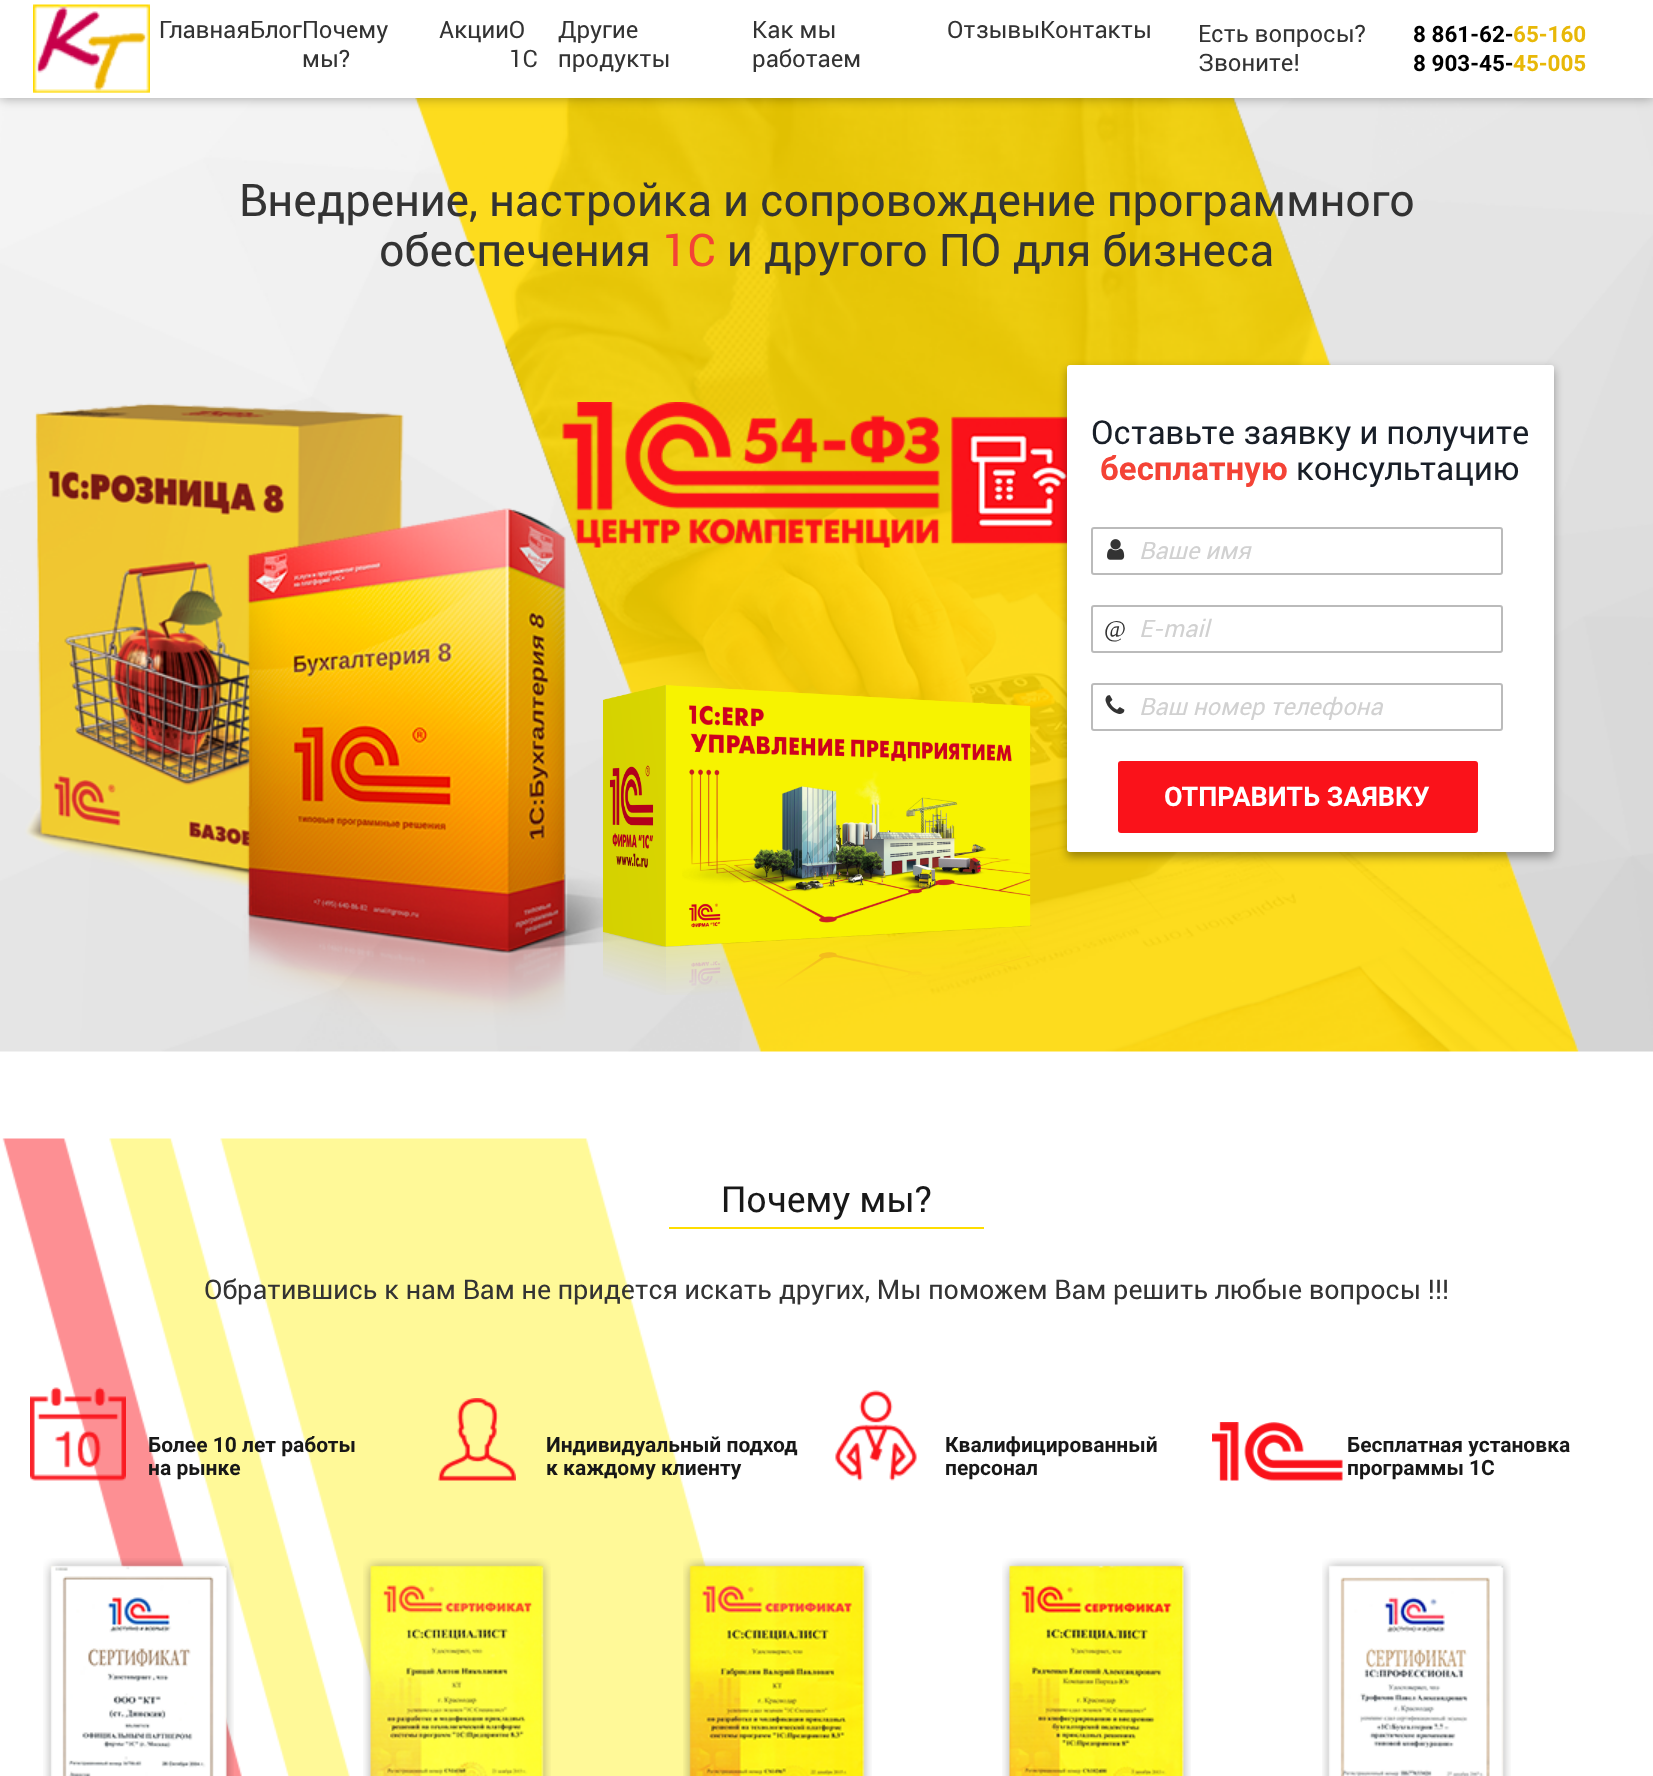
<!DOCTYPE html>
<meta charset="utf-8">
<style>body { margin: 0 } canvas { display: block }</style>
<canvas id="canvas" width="1653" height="1776"></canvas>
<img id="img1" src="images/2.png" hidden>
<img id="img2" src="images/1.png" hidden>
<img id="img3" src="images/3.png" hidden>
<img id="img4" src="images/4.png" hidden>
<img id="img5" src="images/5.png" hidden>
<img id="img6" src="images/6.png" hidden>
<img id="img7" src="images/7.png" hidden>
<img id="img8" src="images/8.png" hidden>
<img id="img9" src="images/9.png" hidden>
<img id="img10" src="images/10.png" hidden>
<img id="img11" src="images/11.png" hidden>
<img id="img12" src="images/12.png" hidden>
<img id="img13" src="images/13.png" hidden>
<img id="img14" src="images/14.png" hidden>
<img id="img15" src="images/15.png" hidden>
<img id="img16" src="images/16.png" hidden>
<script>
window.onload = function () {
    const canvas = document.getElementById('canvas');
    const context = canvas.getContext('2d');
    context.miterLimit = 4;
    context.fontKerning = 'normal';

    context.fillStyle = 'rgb(255, 255, 255)';
    context.fillRect(0, 0, 1653, 1776);
    context.drawImage(document.getElementById('img1'), 0, 98, 1653, 954);
    context.fillStyle = 'rgba(0, 0, 0, 0.35)';
    context.filter = 'blur(6px)';
    context.beginPath();
    context.rect(0, 0, 1653, 98);
    context.fill();
    context.filter = 'none';
    context.fillStyle = 'rgb(255, 255, 255)';
    context.fillRect(0, 0, 1653, 98);
    context.drawImage(document.getElementById('img2'), 33, 4, 117, 89);
    context.drawImage(document.getElementById('img3'), 562, 402, 505, 146);
    context.drawImage(document.getElementById('img4'), 603, 685, 429, 310);
    context.fillStyle = 'rgba(0, 0, 0, 0.35)';
    context.filter = 'blur(5px)';
    context.beginPath();
    context.roundRect(1067, 369, 487, 488, 3);
    context.fill();
    context.filter = 'none';
    context.fillStyle = 'rgb(255, 255, 255)';
    context.beginPath();
    context.roundRect(1067, 365, 487, 487, 3);
    context.fill();
    context.beginPath();
    context.roundRect(1092, 528, 410, 46, 2);
    context.strokeStyle = 'rgb(187, 187, 187)';
    context.lineWidth = 2;
    context.stroke();
    context.drawImage(document.getElementById('img5'), 1107, 539, 18, 21);
    context.beginPath();
    context.roundRect(1092, 606, 410, 46, 2);
    context.stroke();
    context.beginPath();
    context.roundRect(1092, 684, 410, 46, 2);
    context.stroke();
    context.drawImage(document.getElementById('img6'), 1105, 695, 20, 19);
    context.fillStyle = 'rgb(250, 18, 26)';
    context.beginPath();
    context.roundRect(1118, 761, 360, 72, 3);
    context.fill();
    context.drawImage(document.getElementById('img7'), 2, 1138, 762, 638);
    context.fillStyle = 'rgb(254, 221, 0)';
    context.fillRect(669, 1227, 315, 2);
    context.drawImage(document.getElementById('img8'), 30, 1387, 96, 94);
    context.drawImage(document.getElementById('img9'), 438, 1398, 78, 83);
    context.drawImage(document.getElementById('img10'), 835, 1390, 82, 91);
    context.drawImage(document.getElementById('img11'), 1212, 1422, 131, 59);
    context.drawImage(document.getElementById('img12'), 43, 1558, 191, 218);
    context.drawImage(document.getElementById('img13'), 363, 1558, 188, 218);
    context.drawImage(document.getElementById('img14'), 683, 1558, 189, 218);
    context.drawImage(document.getElementById('img15'), 1002, 1558, 189, 218);
    context.drawImage(document.getElementById('img16'), 1322, 1558, 189, 218);
    context.font = '24px Roboto';
    context.fillStyle = 'rgb(51, 51, 51)';
    context.fillText('ГлавнаяБлогПочему', 159, 38);
    context.fillText('АкцииО', 439, 38);
    context.fillText('Другие', 558, 38);
    context.fillText('продукты', 558, 67);
    context.fillText('Как мы', 752, 38);
    context.fillText('работаем', 752, 67);
    context.fillText('ОтзывыКонтакты', 947, 38);
    context.fillText('мы?', 302, 67);
    context.fillText('1С', 509, 67);
    context.fillText('Есть вопросы?', 1198, 42);
    context.fillText('Звоните!', 1198, 71);
    context.font = 'bold 22.5px Roboto';
    context.fillStyle = 'rgb(0, 0, 0)';
    context.fillText('8 861-62-', 1413, 42);
    context.fillStyle = 'rgb(232, 184, 8)';
    context.fillText('65-160', 1513, 42);
    context.fillStyle = 'rgb(0, 0, 0)';
    context.fillText('8 903-45-', 1413, 71);
    context.fillStyle = 'rgb(232, 184, 8)';
    context.fillText('45-005', 1513, 71);
    context.font = '45px Roboto';
    context.fillStyle = 'rgb(51, 51, 51)';
    context.fillText('Внедрение, настройка и сопровождение программного', 239, 216);
    context.fillText('обеспечения', 379, 266);
    context.fillStyle = 'rgb(244, 67, 54)';
    context.fillText('1С', 662, 266);
    context.fillStyle = 'rgb(51, 51, 51)';
    context.fillText('и другого ПО для бизнеса', 727, 266);
    context.font = '33px Roboto';
    context.fillStyle = 'rgb(24, 30, 39)';
    context.fillText('Оставьте заявку и получите', 1091, 444);
    context.font = 'bold 33px Roboto';
    context.fillStyle = 'rgb(244, 67, 54)';
    context.fillText('бесплатную', 1100, 480);
    context.font = '33px Roboto';
    context.fillStyle = 'rgb(24, 30, 39)';
    context.fillText('консультацию', 1296, 480);
    context.font = 'italic 24px Roboto';
    context.fillStyle = 'rgb(209, 209, 209)';
    context.fillText('Ваше имя', 1139, 559);
    context.font = '24px Liberation Serif';
    context.fillStyle = 'rgb(51, 51, 51)';
    context.fillText('@', 1104, 637);
    context.font = 'italic 24px Roboto';
    context.fillStyle = 'rgb(209, 209, 209)';
    context.fillText('E-mail', 1139, 637);
    context.fillText('Ваш номер телефона', 1139, 715);
    context.font = 'bold 27px Roboto';
    context.fillStyle = 'rgb(255, 255, 255)';
    context.fillText('ОТПРАВИТЬ ЗАЯВКУ', 1164, 806);
    context.font = '36px Roboto';
    context.fillStyle = 'rgb(24, 24, 24)';
    context.fillText('Почему мы?', 721, 1212);
    context.font = '27px Roboto';
    context.fillStyle = 'rgb(51, 51, 51)';
    context.fillText('Обратившись к нам Вам не придется искать других, Мы поможем Вам решить любые вопросы !!!', 204, 1299);
    context.font = 'bold 21px Roboto';
    context.fillStyle = 'rgb(24, 24, 24)';
    context.fillText('Более 10 лет работы', 148, 1452);
    context.fillText('на рынке', 148, 1475);
    context.fillText('Индивидуальный подход', 546, 1452);
    context.fillText('к каждому клиенту', 546, 1475);
    context.fillText('Квалифицированный', 945, 1452);
    context.fillText('персонал', 945, 1475);
    context.fillText('Бесплатная установка', 1347, 1452);
    context.fillText('программы 1С', 1347, 1475);
};
</script>
